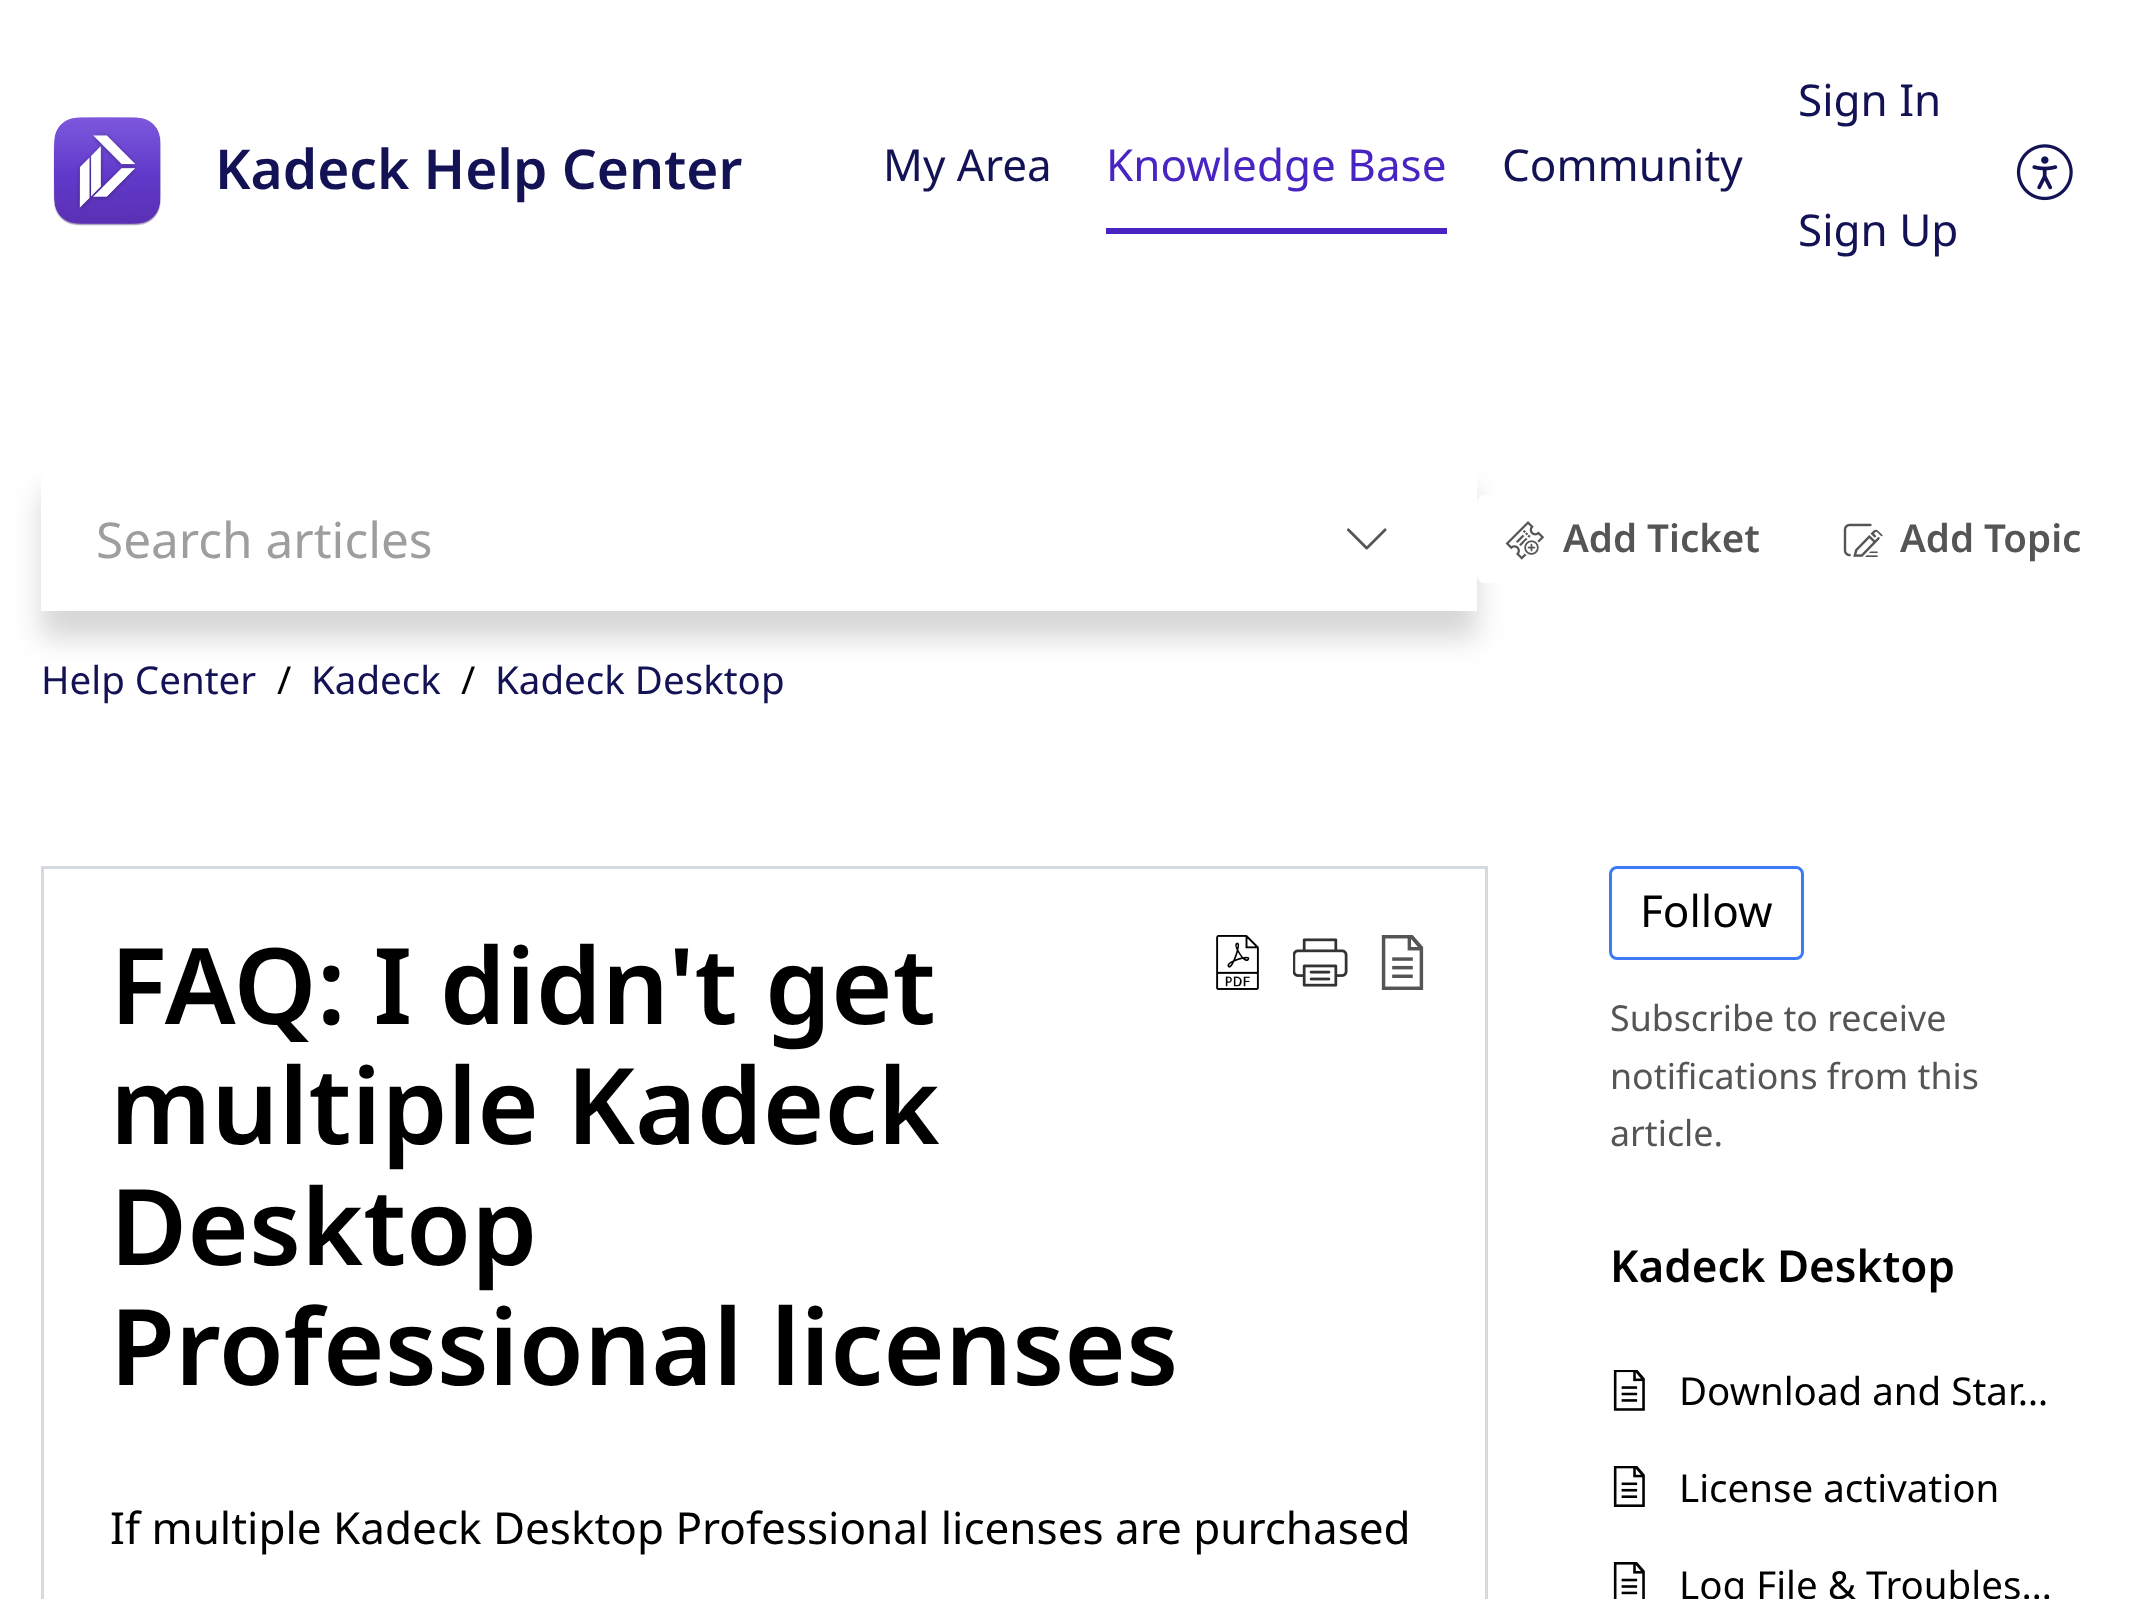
<!DOCTYPE html>
<meta charset="utf-8">
<style>body { margin: 0 } canvas { display: block }</style>
<canvas id="canvas" width="2150" height="1599"></canvas>
<img id="img1" src="images/1.png" hidden>
<img id="img2" src="images/2.png" hidden>
<img id="img3" src="images/3.png" hidden>
<img id="img4" src="images/4.png" hidden>
<img id="img5" src="images/5.png" hidden>
<img id="img6" src="images/6.png" hidden>
<img id="img7" src="images/7.png" hidden>
<img id="img8" src="images/8.png" hidden>
<img id="img9" src="images/9.png" hidden>
<img id="img10" src="images/10.png" hidden>
<img id="img11" src="images/11.png" hidden>
<script>
window.onload = function () {
    const canvas = document.getElementById('canvas');
    const context = canvas.getContext('2d');
    context.miterLimit = 4;
    context.fontKerning = 'normal';

    context.fillStyle = 'rgb(255, 255, 255)';
    context.fillRect(0, 0, 2150, 1599);
    context.drawImage(document.getElementById('img1'), 53, 117, 108, 109);
    context.fillStyle = 'rgb(72, 36, 194)';
    context.fillRect(1106, 228, 341, 6);
    context.drawImage(document.getElementById('img2'), 2016, 144, 57, 57);
    context.save();
    context.beginPath();
    context.moveTo(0, 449);
    context.lineTo(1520, 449);
    context.lineTo(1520, 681);
    context.lineTo(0, 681);
    context.closePath();
    context.moveTo(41, 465);
    context.lineTo(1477, 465);
    context.lineTo(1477, 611);
    context.lineTo(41, 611);
    context.closePath();
    context.clip('evenodd');
    context.fillStyle = 'rgba(0, 0, 0, 0.16)';
    context.filter = 'blur(14px)';
    context.beginPath();
    context.rect(41, 492, 1436, 146);
    context.fill();
    context.filter = 'none';
    context.restore();
    context.fillStyle = 'rgb(255, 255, 255)';
    context.beginPath();
    context.roundRect(41, 465, 1436, 146, 8);
    context.fill();
    context.beginPath();
    context.roundRect(41, 465, 1216, 146, 8);
    context.fill();
    context.drawImage(document.getElementById('img3'), 1347, 528, 40, 22);
    context.beginPath();
    context.roundRect(1477, 495, 311, 88, 8);
    context.fill();
    context.drawImage(document.getElementById('img4'), 1505, 521, 40, 39);
    context.drawImage(document.getElementById('img5'), 1843, 523, 40, 34);
    context.strokeStyle = 'rgb(212, 218, 223)';
    context.lineWidth = 3;
    context.strokeRect(42.5, 867.5, 1444, 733);
    context.drawImage(document.getElementById('img6'), 1216, 935, 43, 55);
    context.drawImage(document.getElementById('img7'), 1293, 938, 55, 49);
    context.drawImage(document.getElementById('img8'), 1381, 935, 43, 55);
    context.beginPath();
    context.roundRect(1610.5, 867.5, 192, 91, 6.5);
    context.strokeStyle = 'rgb(62, 122, 247)';
    context.stroke();
    context.drawImage(document.getElementById('img9'), 1613, 1370, 32, 41);
    context.drawImage(document.getElementById('img10'), 1613, 1466, 32, 41);
    context.drawImage(document.getElementById('img11'), 1613, 1562, 32, 37);
    context.font = '600 55px Noto Sans';
    context.fillStyle = 'rgb(18, 18, 84)';
    context.fillText('Kadeck Help Center', 215, 189);
    context.font = '44px Noto Sans';
    context.fillText('My Area', 883, 181);
    context.fillStyle = 'rgb(72, 36, 194)';
    context.fillText('Knowledge Base', 1106, 181);
    context.fillStyle = 'rgb(18, 18, 84)';
    context.fillText('Community', 1502, 181);
    context.fillText('Sign In', 1798, 116);
    context.fillText('Sign Up', 1798, 246);
    context.font = '49.5px Noto Sans';
    context.fillStyle = 'rgb(158, 158, 158)';
    context.fillText('Search articles', 96, 558);
    context.font = '600 38.5px Noto Sans';
    context.fillStyle = 'rgb(85, 85, 85)';
    context.fillText('Add Ticket', 1563, 552);
    context.fillText('Add Topic', 1900, 552);
    context.font = '38.5px Noto Sans';
    context.fillStyle = 'rgb(18, 18, 84)';
    context.fillText('Help Center', 41, 694);
    context.fillStyle = 'rgb(0, 0, 0)';
    context.fillText('/', 277, 694);
    context.fillStyle = 'rgb(18, 18, 84)';
    context.fillText('Kadeck', 311, 694);
    context.fillStyle = 'rgb(0, 0, 0)';
    context.fillText('/', 461, 694);
    context.fillStyle = 'rgb(18, 18, 84)';
    context.fillText('Kadeck Desktop', 495, 694);
    context.font = '600 105.6px Noto Sans';
    context.fillStyle = 'rgb(0, 0, 0)';
    context.fillText('FAQ: I didn\'t get', 110, 1024);
    context.fillText('multiple Kadeck', 110, 1144);
    context.fillText('Desktop', 110, 1265);
    context.fillText('Professional licenses', 110, 1385);
    context.font = '44px Noto Sans';
    context.fillText('If multiple Kadeck Desktop Professional licenses are purchased', 110, 1544);
    context.fillText('Follow', 1640, 927);
    context.font = '35.75px Noto Sans';
    context.fillStyle = 'rgb(85, 85, 85)';
    context.fillText('Subscribe to receive', 1610, 1031);
    context.fillText('notifications from this', 1610, 1089);
    context.fillText('article.', 1610, 1146);
    context.font = '600 44px Noto Sans';
    context.fillStyle = 'rgb(0, 0, 0)';
    context.fillText('Kadeck Desktop', 1610, 1282);
    context.font = '38.5px Noto Sans';
    context.fillText('Download and Star…', 1679, 1405);
    context.fillText('License activation', 1679, 1502);
    context.fillText('Log File & Troubles…', 1679, 1599);
};
</script>
